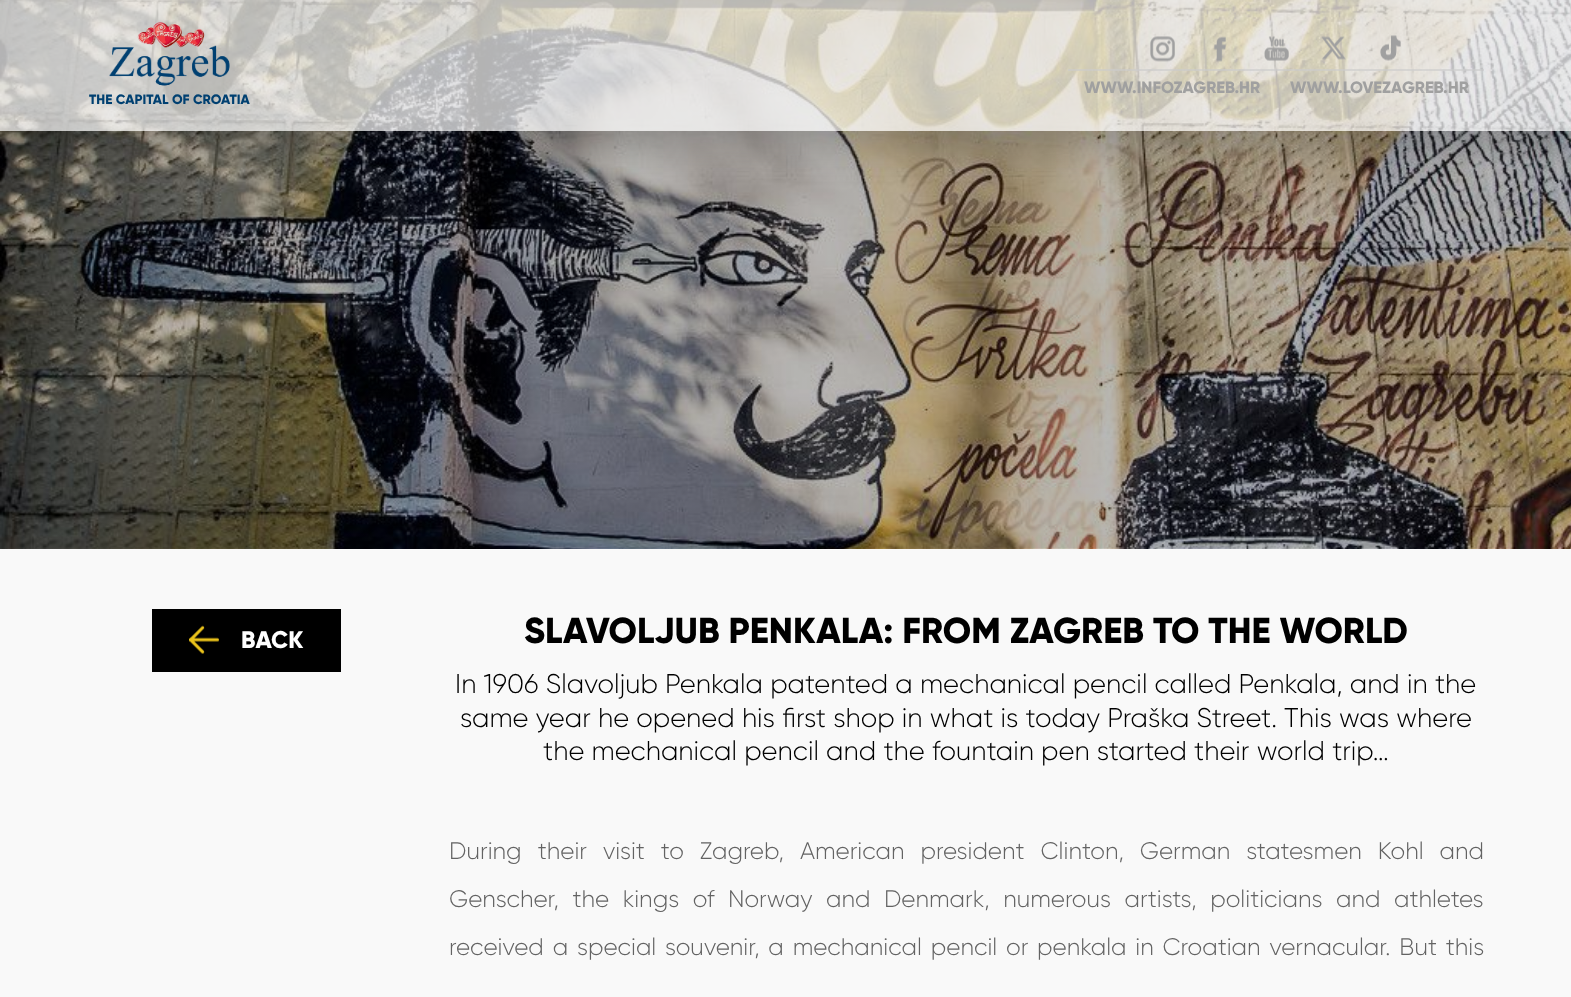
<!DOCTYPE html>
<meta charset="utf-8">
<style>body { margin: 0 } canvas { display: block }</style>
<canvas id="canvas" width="1571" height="997"></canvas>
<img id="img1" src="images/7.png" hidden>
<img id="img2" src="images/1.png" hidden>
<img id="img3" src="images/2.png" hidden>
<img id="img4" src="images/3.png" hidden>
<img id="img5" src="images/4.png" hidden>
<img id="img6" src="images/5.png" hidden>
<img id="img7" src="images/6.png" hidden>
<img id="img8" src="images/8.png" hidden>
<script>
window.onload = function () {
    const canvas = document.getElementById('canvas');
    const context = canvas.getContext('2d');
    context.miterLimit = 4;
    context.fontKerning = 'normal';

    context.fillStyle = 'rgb(249, 249, 249)';
    context.fillRect(0, 0, 1571, 997);
    context.drawImage(document.getElementById('img1'), 0, 0, 1571, 549);
    context.save();
    context.beginPath();
    context.moveTo(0, 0);
    context.lineTo(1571, 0);
    context.lineTo(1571, 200);
    context.lineTo(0, 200);
    context.closePath();
    context.moveTo(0, 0);
    context.lineTo(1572, 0);
    context.lineTo(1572, 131);
    context.lineTo(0, 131);
    context.closePath();
    context.clip('evenodd');
    context.fillStyle = 'rgba(0, 0, 0, 0.18)';
    context.filter = 'blur(16.5px)';
    context.beginPath();
    context.rect(8, 33, 1557, 116);
    context.fill();
    context.filter = 'none';
    context.restore();
    context.fillStyle = 'rgba(255, 255, 255, 0.7)';
    context.fillRect(0, 0, 1571, 131);
    context.fillStyle = 'rgba(204, 204, 204, 0.62)';
    context.fillRect(1068, 69, 416, 2);
    context.drawImage(document.getElementById('img2'), 1150, 36, 25, 26);
    context.drawImage(document.getElementById('img3'), 1214, 36, 12, 26);
    context.drawImage(document.getElementById('img4'), 1264, 36, 25, 25);
    context.drawImage(document.getElementById('img5'), 1321, 36, 25, 24);
    context.drawImage(document.getElementById('img6'), 1380, 35, 21, 26);
    context.drawImage(document.getElementById('img7'), 109, 22, 121, 64);
    context.fillStyle = 'rgb(0, 0, 0)';
    context.fillRect(152, 609, 189, 63);
    context.drawImage(document.getElementById('img8'), 189, 625, 30, 29);
    context.font = '800 16.5px Gilroy';
    context.fillStyle = 'rgb(160, 160, 160)';
    context.fillText('WWW.INFOZAGREB.HR', 1084, 93);
    context.fillText('WWW.LOVEZAGREB.HR', 1290, 93);
    context.font = '800 13.5px Gilroy';
    context.fillStyle = 'rgb(0, 64, 113)';
    context.fillText('THE CAPITAL OF CROATIA', 89, 104);
    context.font = '800 24px Gilroy';
    context.fillStyle = 'rgb(255, 255, 255)';
    context.fillText('BACK', 241, 648);
    context.font = '800 36px Gilroy';
    context.fillStyle = 'rgb(0, 0, 0)';
    context.fillText('SLAVOLJUB PENKALA: FROM ZAGREB TO THE WORLD', 524, 643);
    context.font = '300 27px Gilroy';
    context.fillText('In 1906 Slavoljub Penkala patented a mechanical pencil called Penkala, and in the', 455, 693);
    context.fillText('same year he opened his first shop in what is today Praška Street. This was where', 460, 727);
    context.fillText('the mechanical pencil and the fountain pen started their world trip…', 543, 760);
    context.wordSpacing = '9.6px';
    context.font = '300 24px Gilroy';
    context.fillStyle = 'rgb(99, 99, 99)';
    context.fillText('During their visit to Zagreb, American president Clinton, German statesmen Kohl and', 449, 859);
    context.wordSpacing = '7.1px';
    context.fillText('Genscher, the kings of Norway and Denmark, numerous artists, politicians and athletes', 449, 907);
    context.wordSpacing = '2.4px';
    context.fillText('received a special souvenir, a mechanical pencil or penkala in Croatian vernacular. But this', 449, 955);
};
</script>
